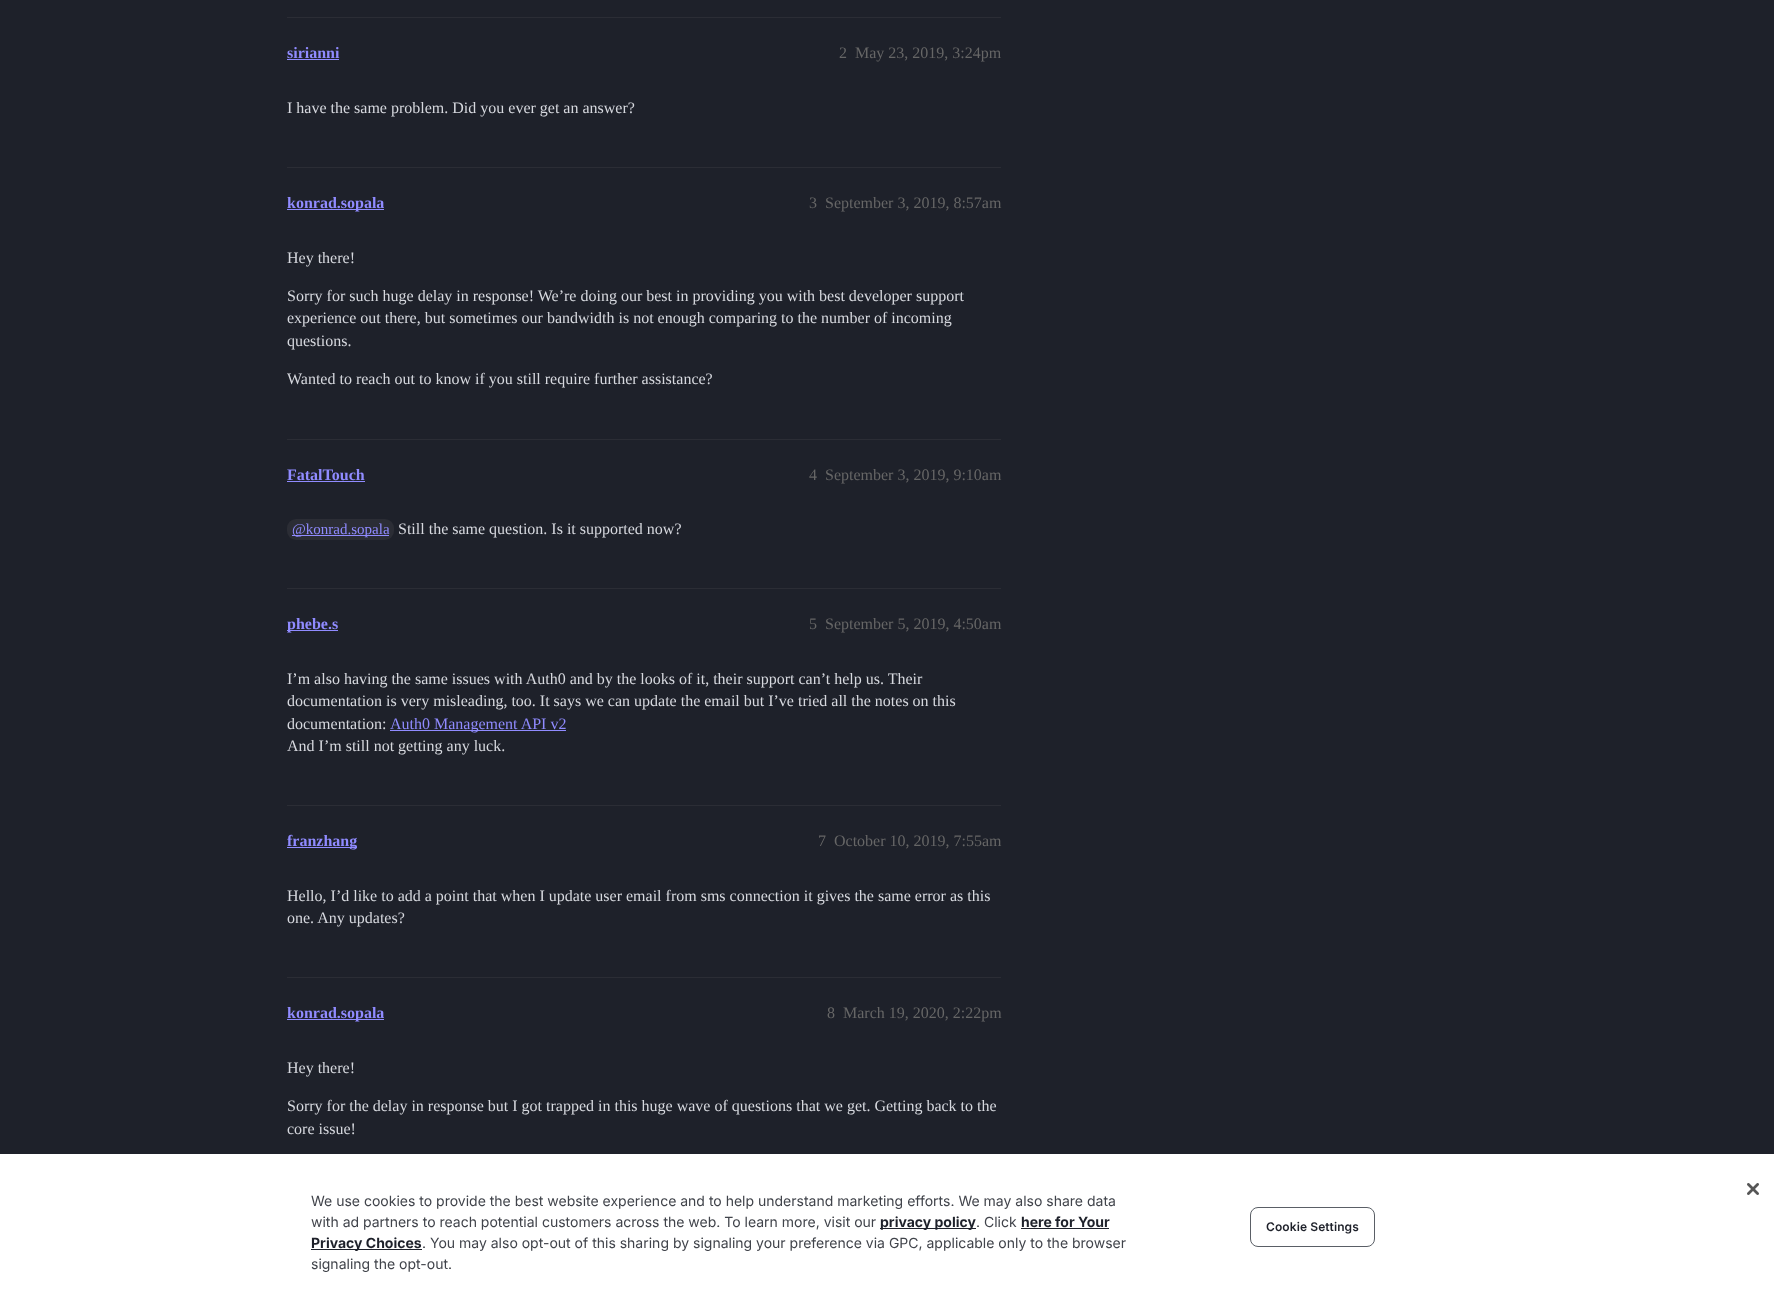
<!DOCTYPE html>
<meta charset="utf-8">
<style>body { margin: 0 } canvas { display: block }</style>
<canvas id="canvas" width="1774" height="1300"></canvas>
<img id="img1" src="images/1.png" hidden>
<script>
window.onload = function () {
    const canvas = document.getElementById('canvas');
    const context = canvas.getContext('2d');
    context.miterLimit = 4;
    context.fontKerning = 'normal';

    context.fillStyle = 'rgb(30, 33, 42)';
    context.fillRect(0, 0, 1774, 1300);
    context.fillStyle = 'rgb(43, 45, 53)';
    context.fillRect(287, 17, 714, 1);
    context.fillStyle = 'rgb(144, 139, 255)';
    context.fillRect(287, 59, 52, 1);
    context.fillStyle = 'rgb(43, 45, 53)';
    context.fillRect(287, 167, 714, 1);
    context.fillStyle = 'rgb(144, 139, 255)';
    context.fillRect(287, 209, 97, 1);
    context.fillStyle = 'rgb(43, 45, 53)';
    context.fillRect(287, 439, 714, 1);
    context.fillStyle = 'rgb(144, 139, 255)';
    context.fillRect(287, 481, 78, 1);
    context.fillStyle = 'rgb(43, 45, 53)';
    context.beginPath();
    context.roundRect(287, 519, 107, 21, 9);
    context.fill();
    context.fillStyle = 'rgb(144, 139, 255)';
    context.fillRect(292, 535, 97, 1);
    context.fillStyle = 'rgb(43, 45, 53)';
    context.fillRect(287, 588, 714, 1);
    context.fillStyle = 'rgb(144, 139, 255)';
    context.fillRect(287, 630, 51, 1);
    context.fillRect(390, 730, 176, 1);
    context.fillStyle = 'rgb(43, 45, 53)';
    context.fillRect(287, 805, 714, 1);
    context.fillStyle = 'rgb(144, 139, 255)';
    context.fillRect(287, 847, 70, 1);
    context.fillStyle = 'rgb(43, 45, 53)';
    context.fillRect(287, 977, 714, 1);
    context.fillStyle = 'rgb(144, 139, 255)';
    context.fillRect(287, 1019, 97, 1);
    context.fillStyle = 'rgb(255, 255, 255)';
    context.fillRect(0, 1154, 1774, 146);
    context.drawImage(document.getElementById('img1'), 1747, 1183, 12, 12);
    context.fillStyle = 'rgb(30, 33, 42)';
    context.fillRect(880, 1228, 96, 1);
    context.fillRect(1021, 1228, 88, 1);
    context.fillRect(311, 1249, 111, 1);
    context.beginPath();
    context.roundRect(1250.5, 1207.5, 124, 39, 7.5);
    context.strokeStyle = 'rgb(90, 95, 102)';
    context.stroke();
    context.font = 'bold 16px Liberation Serif';
    context.fillStyle = 'rgb(144, 139, 255)';
    context.fillText('sirianni', 287, 58);
    context.font = '16px Liberation Serif';
    context.fillStyle = 'rgb(102, 102, 102)';
    context.fillText('2', 839, 58);
    context.fillText('May 23, 2019, 3:24pm', 855, 58);
    context.fillStyle = 'rgb(214, 216, 222)';
    context.fillText('I have the same problem. Did you ever get an answer?', 287, 113);
    context.font = 'bold 16px Liberation Serif';
    context.fillStyle = 'rgb(144, 139, 255)';
    context.fillText('konrad.sopala', 287, 208);
    context.font = '16px Liberation Serif';
    context.fillStyle = 'rgb(102, 102, 102)';
    context.fillText('3', 809, 208);
    context.fillText('September 3, 2019, 8:57am', 825, 208);
    context.fillStyle = 'rgb(214, 216, 222)';
    context.fillText('Hey there!', 287, 263);
    context.fillText('Sorry for such huge delay in response! We’re doing our best in providing you with best developer support', 287, 301);
    context.fillText('experience out there, but sometimes our bandwidth is not enough comparing to the number of incoming', 287, 323);
    context.fillText('questions.', 287, 346);
    context.fillText('Wanted to reach out to know if you still require further assistance?', 287, 384);
    context.font = 'bold 16px Liberation Serif';
    context.fillStyle = 'rgb(144, 139, 255)';
    context.fillText('FatalTouch', 287, 480);
    context.font = '16px Liberation Serif';
    context.fillStyle = 'rgb(102, 102, 102)';
    context.fillText('4', 809, 480);
    context.fillText('September 3, 2019, 9:10am', 825, 480);
    context.font = '15px Liberation Serif';
    context.fillStyle = 'rgb(144, 139, 255)';
    context.fillText('@konrad.sopala', 292, 534);
    context.font = '16px Liberation Serif';
    context.fillStyle = 'rgb(214, 216, 222)';
    context.fillText('Still the same question. Is it supported now?', 398, 534);
    context.font = 'bold 16px Liberation Serif';
    context.fillStyle = 'rgb(144, 139, 255)';
    context.fillText('phebe.s', 287, 629);
    context.font = '16px Liberation Serif';
    context.fillStyle = 'rgb(102, 102, 102)';
    context.fillText('5', 809, 629);
    context.fillText('September 5, 2019, 4:50am', 825, 629);
    context.fillStyle = 'rgb(214, 216, 222)';
    context.fillText('I’m also having the same issues with Auth0 and by the looks of it, their support can’t help us. Their', 287, 684);
    context.fillText('documentation is very misleading, too. It says we can update the email but I’ve tried all the notes on this', 287, 706);
    context.fillText('documentation:', 287, 729);
    context.fillStyle = 'rgb(144, 139, 255)';
    context.fillText('Auth0 Management API v2', 390, 729);
    context.fillStyle = 'rgb(214, 216, 222)';
    context.fillText('And I’m still not getting any luck.', 287, 751);
    context.font = 'bold 16px Liberation Serif';
    context.fillStyle = 'rgb(144, 139, 255)';
    context.fillText('franzhang', 287, 846);
    context.font = '16px Liberation Serif';
    context.fillStyle = 'rgb(102, 102, 102)';
    context.fillText('7', 818, 846);
    context.fillText('October 10, 2019, 7:55am', 834, 846);
    context.fillStyle = 'rgb(214, 216, 222)';
    context.fillText('Hello, I’d like to add a point that when I update user email from sms connection it gives the same error as this', 287, 901);
    context.fillText('one. Any updates?', 287, 923);
    context.font = 'bold 16px Liberation Serif';
    context.fillStyle = 'rgb(144, 139, 255)';
    context.fillText('konrad.sopala', 287, 1018);
    context.font = '16px Liberation Serif';
    context.fillStyle = 'rgb(102, 102, 102)';
    context.fillText('8', 827, 1018);
    context.fillText('March 19, 2020, 2:22pm', 843, 1018);
    context.fillStyle = 'rgb(214, 216, 222)';
    context.fillText('Hey there!', 287, 1073);
    context.fillText('Sorry for the delay in response but I got trapped in this huge wave of questions that we get. Getting back to the', 287, 1111);
    context.fillText('core issue!', 287, 1134);
    context.font = '14px Inter';
    context.fillStyle = 'rgb(65, 68, 75)';
    context.fillText('We use cookies to provide the best website experience and to help understand marketing efforts. We may also share data', 311, 1206);
    context.fillText('with ad partners to reach potential customers across the web. To learn more, visit our', 311, 1227);
    context.font = 'bold 14px Inter';
    context.fillStyle = 'rgb(30, 33, 42)';
    context.fillText('privacy policy', 880, 1227);
    context.font = '14px Inter';
    context.fillStyle = 'rgb(65, 68, 75)';
    context.fillText('. Click', 976, 1227);
    context.font = 'bold 14px Inter';
    context.fillStyle = 'rgb(30, 33, 42)';
    context.fillText('here for Your', 1021, 1227);
    context.fillText('Privacy Choices', 311, 1248);
    context.font = '14px Inter';
    context.fillStyle = 'rgb(65, 68, 75)';
    context.fillText('. You may also opt-out of this sharing by signaling your preference via GPC, applicable only to the browser', 422, 1248);
    context.fillText('signaling the opt-out.', 311, 1269);
    context.letterSpacing = '0.1px';
    context.font = '600 12px Inter';
    context.fillStyle = 'rgb(30, 33, 42)';
    context.fillText('Cookie Settings', 1266, 1231);
};
</script>
